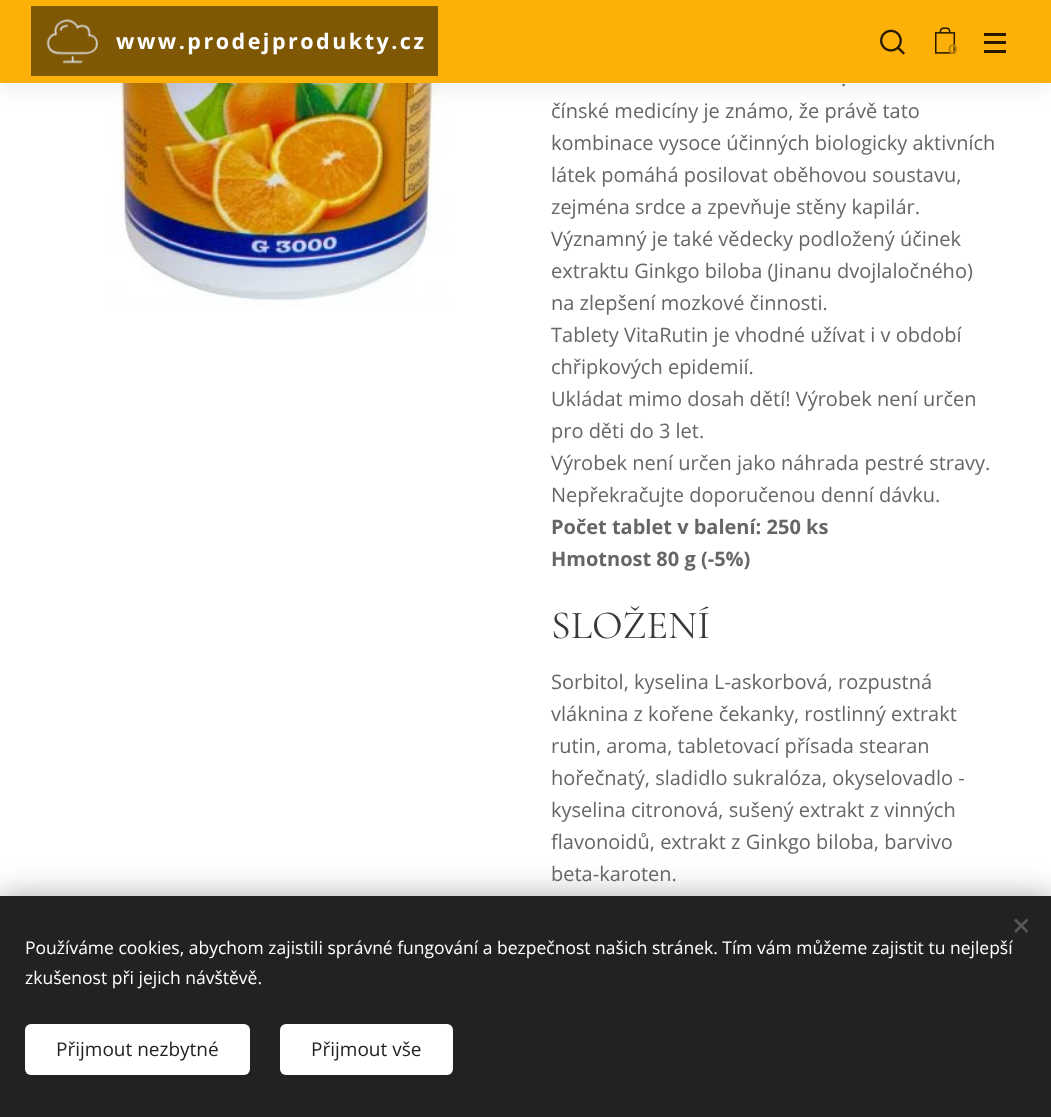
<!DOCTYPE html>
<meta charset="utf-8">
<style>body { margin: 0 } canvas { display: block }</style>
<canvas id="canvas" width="1051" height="1117"></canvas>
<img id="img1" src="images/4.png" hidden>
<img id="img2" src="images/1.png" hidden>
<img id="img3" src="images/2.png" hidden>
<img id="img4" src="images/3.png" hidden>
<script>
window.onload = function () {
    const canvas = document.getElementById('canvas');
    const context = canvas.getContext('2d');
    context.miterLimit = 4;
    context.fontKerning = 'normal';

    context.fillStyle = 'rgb(255, 255, 255)';
    context.fillRect(0, 0, 1051, 1117);
    context.drawImage(document.getElementById('img1'), 111, 83, 339, 225);
    context.fillStyle = 'rgba(0, 0, 0, 0.07)';
    context.filter = 'blur(9.5px)';
    context.beginPath();
    context.rect(0, 6, 1051, 83);
    context.fill();
    context.filter = 'none';
    context.fillStyle = 'rgb(252, 176, 8)';
    context.fillRect(0, 0, 1051, 83);
    context.fillStyle = 'rgb(126, 88, 4)';
    context.fillRect(31, 6, 407, 70);
    context.drawImage(document.getElementById('img2'), 46, 19, 52, 45);
    context.drawImage(document.getElementById('img3'), 880, 29, 25, 26);
    context.drawImage(document.getElementById('img4'), 935, 27, 21, 27);
    context.fillStyle = 'rgb(38, 26, 1)';
    context.fillRect(984, 41, 22, 3);
    context.fillRect(984, 33, 22, 3);
    context.fillRect(984, 50, 22, 3);
    context.fillStyle = 'rgba(0, 0, 0, 0.33)';
    context.filter = 'blur(15.5px)';
    context.beginPath();
    context.rect(0, 896, 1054, 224);
    context.fill();
    context.filter = 'none';
    context.fillStyle = 'rgb(34, 34, 34)';
    context.fillRect(0, 896, 1051, 221);
    context.fillStyle = 'rgb(85, 85, 85)';
    context.beginPath();
    context.moveTo(1014, 931);
    context.lineTo(1026.5, 918.5);
    context.lineTo(1028.5, 920.5);
    context.lineTo(1016, 933);
    context.closePath();
    context.fill();
    context.beginPath();
    context.moveTo(1016, 918.5);
    context.lineTo(1028.5, 931);
    context.lineTo(1026.5, 933);
    context.lineTo(1014, 920.5);
    context.closePath();
    context.fill();
    context.fillStyle = 'rgb(255, 255, 255)';
    context.beginPath();
    context.roundRect(25, 1024, 225, 51, 6);
    context.fill();
    context.beginPath();
    context.roundRect(280, 1024, 173, 51, 6);
    context.fill();
    context.letterSpacing = '2.5px';
    context.font = 'bold 21.5px Open Sans';
    context.fillText('www.prodejprodukty.cz', 116, 49);
    context.letterSpacing = '0px';
    context.font = 'bold 14px Montserrat';
    context.fillStyle = 'rgb(191, 134, 6)';
    context.fillText('0', 948, 54);
    context.font = '20px Open Sans';
    context.fillStyle = 'rgb(102, 102, 102)';
    context.fillText('.', 841, 86);
    context.fillText('čínské medicíny je známo, že právě tato', 551, 118);
    context.fillText('kombinace vysoce účinných biologicky aktivních', 551, 150);
    context.fillText('látek pomáhá posilovat oběhovou soustavu,', 551, 182);
    context.fillText('zejména srdce a zpevňuje stěny kapilár.', 551, 214);
    context.fillText('Významný je také vědecky podložený účinek', 551, 246);
    context.fillText('extraktu Ginkgo biloba (Jinanu dvojlaločného)', 551, 278);
    context.fillText('na zlepšení mozkové činnosti.', 551, 310);
    context.fillText('Tablety VitaRutin je vhodné užívat i v období', 551, 342);
    context.fillText('chřipkových epidemií.', 551, 374);
    context.fillText('Ukládat mimo dosah dětí! Výrobek není určen', 551, 406);
    context.fillText('pro děti do 3 let.', 551, 438);
    context.fillText('Výrobek není určen jako náhrada pestré stravy.', 551, 470);
    context.fillText('Nepřekračujte doporučenou denní dávku.', 551, 502);
    context.font = 'bold 20px Open Sans';
    context.fillText('Počet tablet v balení: 250 ks', 551, 534);
    context.fillText('Hmotnost 80 g (-5%)', 551, 566);
    context.font = '40px Cormorant';
    context.fillStyle = 'rgb(57, 57, 57)';
    context.fillText('SLOŽENÍ', 551, 638);
    context.font = '20px Open Sans';
    context.fillStyle = 'rgb(102, 102, 102)';
    context.fillText('Sorbitol, kyselina L-askorbová, rozpustná', 551, 689);
    context.fillText('vláknina z kořene čekanky, rostlinný extrakt', 551, 721);
    context.fillText('rutin, aroma, tabletovací přísada stearan', 551, 753);
    context.fillText('hořečnatý, sladidlo sukralóza, okyselovadlo -', 551, 785);
    context.fillText('kyselina citronová, sušený extrakt z vinných', 551, 817);
    context.fillText('flavonoidů, extrakt z Ginkgo biloba, barvivo', 551, 849);
    context.fillText('beta-karoten.', 551, 881);
    context.font = '17.5px Open Sans';
    context.fillStyle = 'rgb(255, 255, 255)';
    context.fillText('Používáme cookies, abychom zajistili správné fungování a bezpečnost našich stránek. Tím vám můžeme zajistit tu nejlepší', 25, 954);
    context.fillText('zkušenost při jejich návštěvě.', 25, 984);
    context.font = '19px Open Sans';
    context.fillStyle = 'rgb(34, 34, 34)';
    context.fillText('Přijmout nezbytné', 56, 1056);
    context.fillText('Přijmout vše', 311, 1056);
};
</script>
